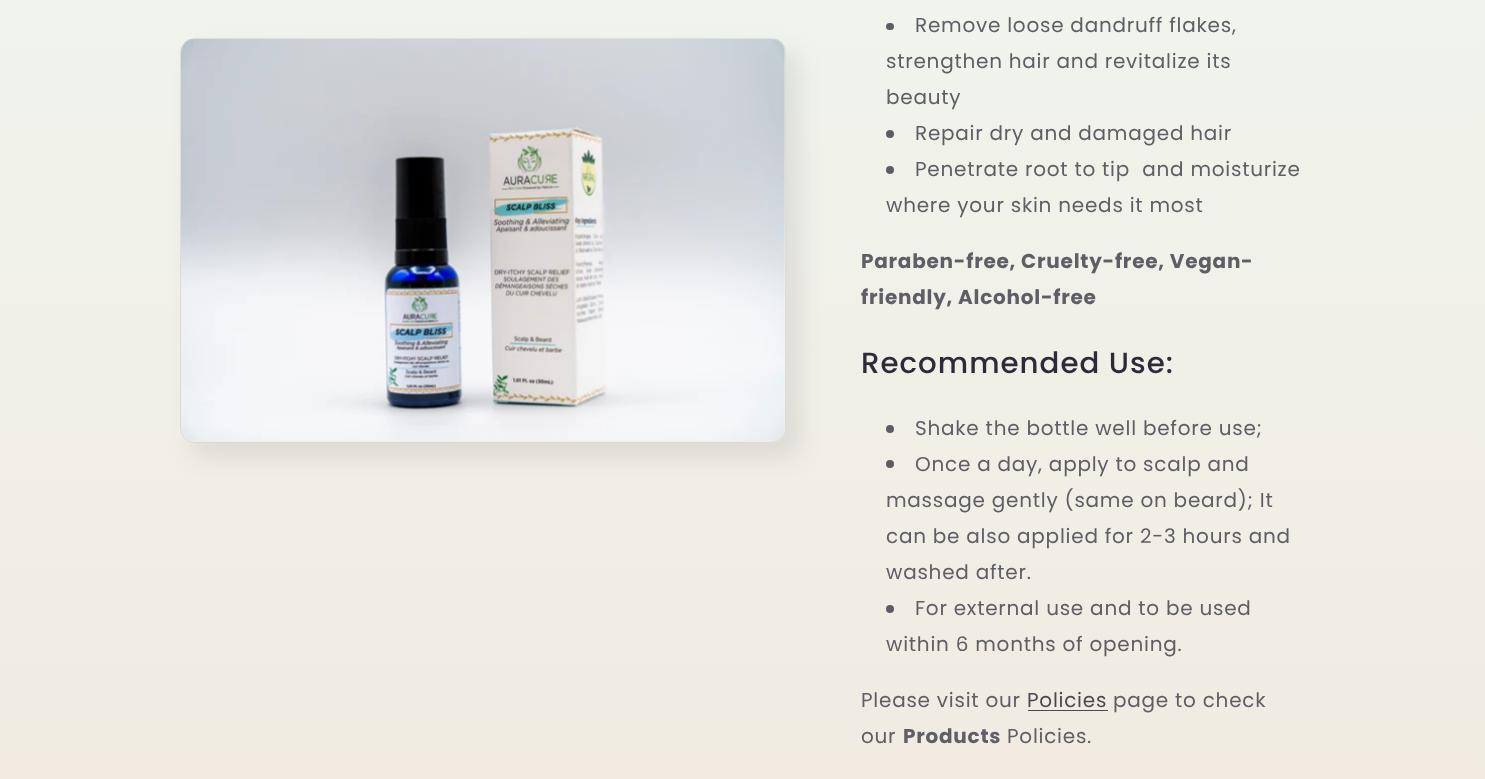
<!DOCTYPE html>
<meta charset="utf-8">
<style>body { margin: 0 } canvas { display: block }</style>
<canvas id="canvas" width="1485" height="779"></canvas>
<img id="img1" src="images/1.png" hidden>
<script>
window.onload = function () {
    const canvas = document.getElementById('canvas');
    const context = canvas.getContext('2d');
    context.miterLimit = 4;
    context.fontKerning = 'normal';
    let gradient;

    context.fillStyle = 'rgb(255, 255, 255)';
    context.fillRect(0, 0, 1485, 779);
    gradient = context.createLinearGradient(743, 0, 743, 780);
    gradient.addColorStop(0, 'rgb(240, 244, 236)');
    gradient.addColorStop(1, 'rgb(241, 235, 226)');
    context.fillStyle = gradient;
    context.fillRect(0, 0, 1485, 779);
    context.fillStyle = 'rgba(46, 42, 57, 0.1)';
    context.filter = 'blur(12.5px)';
    context.beginPath();
    context.roundRect(193, 53, 606, 405, 15);
    context.fill();
    context.filter = 'none';
    gradient = context.createLinearGradient(743, 0, 743, 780);
    gradient.addColorStop(0, 'rgb(240, 244, 236)');
    gradient.addColorStop(1, 'rgb(241, 235, 226)');
    context.fillStyle = gradient;
    context.beginPath();
    context.roundRect(180, 38, 606, 405, 15);
    context.fill();
    context.beginPath();
    context.roundRect(180.5, 38.5, 605, 404, 14.5);
    context.strokeStyle = 'rgba(46, 42, 57, 0.1)';
    context.stroke();
    context.drawImage(document.getElementById('img1'), 181, 39, 604, 402);
    context.fillStyle = 'rgb(95, 93, 102)';
    context.beginPath();
    context.roundRect(886, 23, 8, 7, 3.5);
    context.fill();
    context.fillStyle = 'rgb(95, 92, 101)';
    context.beginPath();
    context.arc(890, 134, 4, 0, 2 * Math.PI);
    context.fill();
    context.beginPath();
    context.arc(890, 170, 4, 0, 2 * Math.PI);
    context.fill();
    context.fillStyle = 'rgb(95, 91, 100)';
    context.beginPath();
    context.arc(890, 429, 4, 0, 2 * Math.PI);
    context.fill();
    context.beginPath();
    context.arc(890, 464, 4, 0, 2 * Math.PI);
    context.fill();
    context.beginPath();
    context.arc(890, 609, 4, 0, 2 * Math.PI);
    context.fill();
    context.fillStyle = 'rgb(75, 71, 83)';
    context.fillRect(1028, 710, 80, 1);
    context.letterSpacing = '0.75px';
    context.font = '20px Poppins';
    context.fillStyle = 'rgb(95, 93, 102)';
    context.fillText('Remove loose dandruff flakes,', 915, 32);
    context.fillText('strengthen hair and revitalize its', 886, 68);
    context.fillText('beauty', 886, 104);
    context.fillText('Repair dry and damaged hair', 915, 140);
    context.fillText('Penetrate root to tip  and moisturize', 915, 176);
    context.fillText('where your skin needs it most', 886, 212);
    context.font = 'bold 20px Poppins';
    context.fillText('Paraben-free, Cruelty-free, Vegan-', 861, 268);
    context.fillText('friendly, Alcohol-free', 861, 304);
    context.letterSpacing = '1px';
    context.font = '500 29.25px Poppins';
    context.fillStyle = 'rgb(46, 42, 57)';
    context.fillText('Recommended Use:', 861, 373);
    context.letterSpacing = '0.75px';
    context.font = '20px Poppins';
    context.fillStyle = 'rgb(95, 93, 102)';
    context.fillText('Shake the bottle well before use;', 915, 435);
    context.fillText('Once a day, apply to scalp and', 915, 471);
    context.fillText('massage gently (same on beard); It', 886, 507);
    context.fillText('can be also applied for 2-3 hours and', 886, 543);
    context.fillText('washed after.', 886, 579);
    context.fillText('For external use and to be used', 915, 615);
    context.fillText('within 6 months of opening.', 886, 651);
    context.fillText('Please visit our', 861, 707);
    context.fillStyle = 'rgb(75, 71, 83)';
    context.fillText('Policies', 1027, 707);
    context.fillStyle = 'rgb(95, 93, 102)';
    context.fillText('page to check', 1113, 707);
    context.fillText('our', 861, 743);
    context.font = 'bold 20px Poppins';
    context.fillText('Products', 903, 743);
    context.font = '20px Poppins';
    context.fillText('Policies.', 1007, 743);
};
</script>
